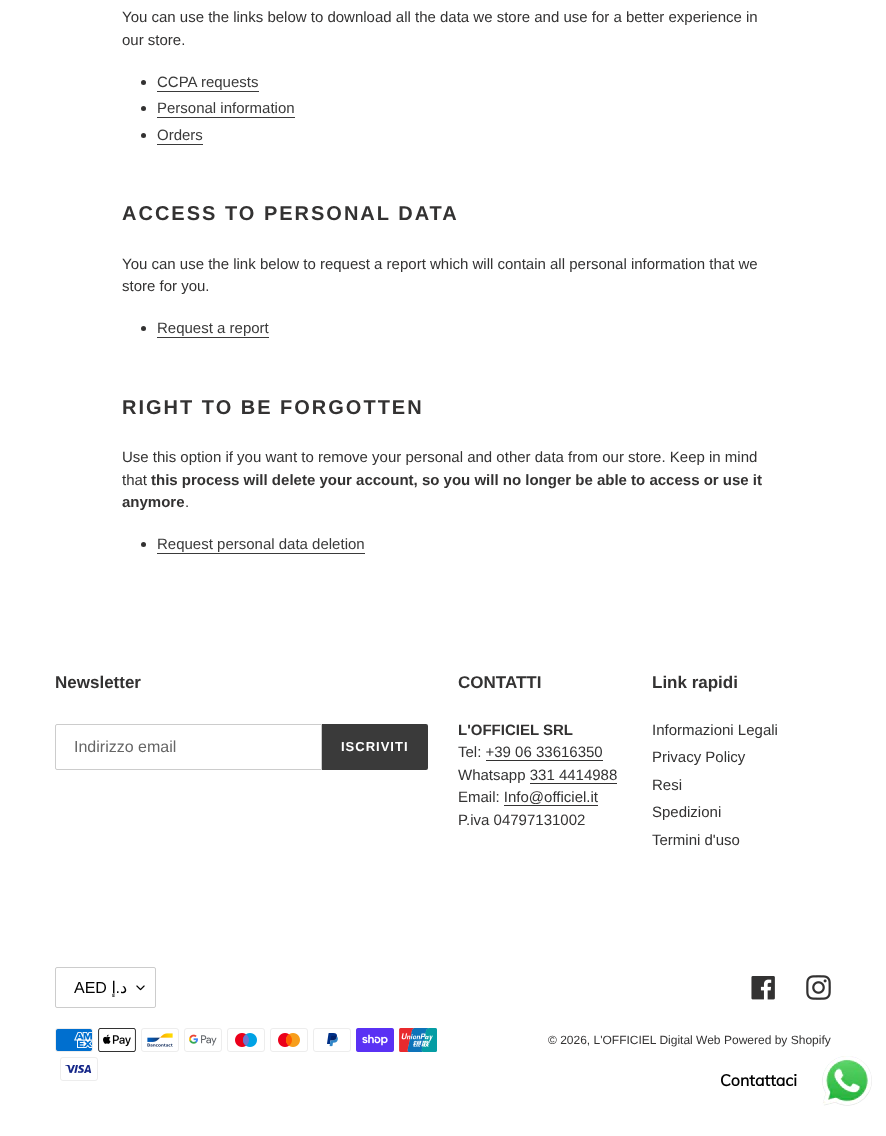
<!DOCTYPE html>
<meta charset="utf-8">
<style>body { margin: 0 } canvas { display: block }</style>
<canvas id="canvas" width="886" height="1136"></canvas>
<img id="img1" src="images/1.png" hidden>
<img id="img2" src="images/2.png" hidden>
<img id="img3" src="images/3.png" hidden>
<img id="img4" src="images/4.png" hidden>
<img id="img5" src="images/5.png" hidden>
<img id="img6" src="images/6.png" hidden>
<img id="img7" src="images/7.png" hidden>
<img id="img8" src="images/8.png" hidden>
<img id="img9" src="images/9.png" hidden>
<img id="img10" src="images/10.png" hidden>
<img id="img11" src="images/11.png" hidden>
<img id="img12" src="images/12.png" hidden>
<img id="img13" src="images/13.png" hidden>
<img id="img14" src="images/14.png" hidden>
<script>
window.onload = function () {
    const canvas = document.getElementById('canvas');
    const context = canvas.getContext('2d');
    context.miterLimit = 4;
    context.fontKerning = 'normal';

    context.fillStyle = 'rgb(255, 255, 255)';
    context.fillRect(0, 0, 886, 1136);
    context.fillStyle = 'rgb(51, 50, 50)';
    context.beginPath();
    context.arc(143.5, 82.5, 2.5, 0, 2 * Math.PI);
    context.fill();
    context.fillStyle = 'rgb(58, 58, 58)';
    context.fillRect(157, 91, 102, 1);
    context.fillStyle = 'rgb(51, 50, 50)';
    context.beginPath();
    context.arc(143.5, 108.5, 2.5, 0, 2 * Math.PI);
    context.fill();
    context.fillStyle = 'rgb(58, 58, 58)';
    context.fillRect(157, 117, 138, 1);
    context.fillStyle = 'rgb(51, 50, 50)';
    context.beginPath();
    context.arc(143.5, 135.5, 2.5, 0, 2 * Math.PI);
    context.fill();
    context.fillStyle = 'rgb(58, 58, 58)';
    context.fillRect(157, 144, 46, 1);
    context.fillStyle = 'rgb(51, 50, 50)';
    context.beginPath();
    context.arc(143.5, 328.5, 2.5, 0, 2 * Math.PI);
    context.fill();
    context.fillStyle = 'rgb(58, 58, 58)';
    context.fillRect(157, 337, 112, 1);
    context.fillStyle = 'rgb(51, 50, 50)';
    context.beginPath();
    context.arc(143.5, 544.5, 2.5, 0, 2 * Math.PI);
    context.fill();
    context.fillStyle = 'rgb(58, 58, 58)';
    context.fillRect(157, 553, 208, 1);
    context.beginPath();
    context.roundRect(55.5, 724.5, 266, 45, [1.5, 0, 0, 1.5]);
    context.strokeStyle = 'rgb(204, 204, 204)';
    context.stroke();
    context.beginPath();
    context.roundRect(322, 724, 106, 46, [0, 2, 2, 0]);
    context.fill();
    context.fillStyle = 'rgb(51, 50, 50)';
    context.fillRect(486, 760, 117, 1);
    context.fillRect(530, 783, 87, 1);
    context.fillRect(504, 805, 94, 1);
    context.drawImage(document.getElementById('img1'), 136, 985, 9, 6);
    context.beginPath();
    context.roundRect(55.5, 967.5, 100, 40, 1.5);
    context.stroke();
    context.drawImage(document.getElementById('img2'), 751, 976, 24, 24);
    context.drawImage(document.getElementById('img3'), 806, 975, 25, 25);
    context.drawImage(document.getElementById('img4'), 55, 1028, 38, 24);
    context.drawImage(document.getElementById('img5'), 98, 1028, 38, 24);
    context.drawImage(document.getElementById('img6'), 141, 1028, 38, 24);
    context.drawImage(document.getElementById('img7'), 184, 1028, 38, 24);
    context.drawImage(document.getElementById('img8'), 227, 1028, 38, 24);
    context.drawImage(document.getElementById('img9'), 270, 1028, 38, 24);
    context.drawImage(document.getElementById('img10'), 313, 1028, 38, 24);
    context.drawImage(document.getElementById('img11'), 356, 1028, 38, 24);
    context.drawImage(document.getElementById('img12'), 399, 1028, 38, 24);
    context.drawImage(document.getElementById('img13'), 60, 1057, 38, 24);
    context.drawImage(document.getElementById('img14'), 822, 1056, 50, 50);
    context.font = '15px Liberation Sans';
    context.fillText('You can use the links below to download all the data we store and use for a better experience in', 122, 22);
    context.fillText('our store.', 122, 45);
    context.fillStyle = 'rgb(58, 58, 58)';
    context.fillText('CCPA requests', 157, 87);
    context.fillText('Personal information', 157, 113);
    context.fillText('Orders', 157, 140);
    context.letterSpacing = '2px';
    context.font = 'bold 20px Liberation Sans';
    context.fillStyle = 'rgb(51, 50, 50)';
    context.fillText('ACCESS TO PERSONAL DATA', 122, 220);
    context.letterSpacing = '0px';
    context.font = '15px Liberation Sans';
    context.fillText('You can use the link below to request a report which will contain all personal information that we', 122, 269);
    context.fillText('store for you.', 122, 291);
    context.fillStyle = 'rgb(58, 58, 58)';
    context.fillText('Request a report', 157, 333);
    context.letterSpacing = '2px';
    context.font = 'bold 20px Liberation Sans';
    context.fillStyle = 'rgb(51, 50, 50)';
    context.fillText('RIGHT TO BE FORGOTTEN', 122, 414);
    context.letterSpacing = '0px';
    context.font = '15px Liberation Sans';
    context.fillText('Use this option if you want to remove your personal and other data from our store. Keep in mind', 122, 462);
    context.fillText('that', 122, 485);
    context.font = 'bold 15px Liberation Sans';
    context.fillText('this process will delete your account, so you will no longer be able to access or use it', 151, 485);
    context.fillText('anymore', 122, 507);
    context.font = '15px Liberation Sans';
    context.fillText('.', 185, 507);
    context.fillStyle = 'rgb(58, 58, 58)';
    context.fillText('Request personal data deletion', 157, 549);
    context.font = 'bold 17px Liberation Sans';
    context.fillStyle = 'rgb(51, 50, 50)';
    context.fillText('Newsletter', 55, 688);
    context.font = '16px Liberation Sans';
    context.fillStyle = 'rgb(102, 102, 102)';
    context.fillText('Indirizzo email', 74, 752);
    context.letterSpacing = '1px';
    context.font = 'bold 13px Liberation Sans';
    context.fillStyle = 'rgb(255, 255, 255)';
    context.fillText('ISCRIVITI', 341, 751);
    context.letterSpacing = '0px';
    context.font = 'bold 17px Liberation Sans';
    context.fillStyle = 'rgb(51, 50, 50)';
    context.fillText('CONTATTI', 458, 688);
    context.font = 'bold 15px Liberation Sans';
    context.fillText('L\'OFFICIEL SRL', 458, 735);
    context.font = '15px Liberation Sans';
    context.fillText('Tel: +39 06 33616350', 458, 757);
    context.fillText('Whatsapp 331 4414988', 458, 780);
    context.fillText('Email: Info@officiel.it', 458, 802);
    context.fillText('P.iva 04797131002', 458, 825);
    context.font = 'bold 17px Liberation Sans';
    context.fillText('Link rapidi', 652, 688);
    context.font = '15px Liberation Sans';
    context.fillText('Informazioni Legali', 652, 735);
    context.fillText('Privacy Policy', 652, 762);
    context.fillText('Resi', 652, 790);
    context.fillText('Spedizioni', 652, 817);
    context.fillText('Termini d\'uso', 652, 845);
    context.font = '16px Liberation Sans';
    context.fillStyle = 'rgb(0, 0, 0)';
    context.fillText('AED', 74, 993);
    context.direction = 'rtl';
    context.font = '16px DejaVu Sans';
    context.fillText('إ', 116, 993);
    context.font = '16px Liberation Sans';
    context.fillText('.', 120, 993);
    context.font = '16px DejaVu Sans';
    context.fillText('د', 127, 993);
    context.direction = 'ltr';
    context.font = '12px Liberation Sans';
    context.fillStyle = 'rgb(51, 50, 50)';
    context.fillText('© 2026, L\'OFFICIEL Digital Web', 548, 1044);
    context.fillText('Powered by Shopify', 724, 1044);
    context.font = 'bold 16px Muli';
    context.fillStyle = 'rgb(0, 0, 0)';
    context.fillText('Contattaci', 720, 1086);
};
</script>
